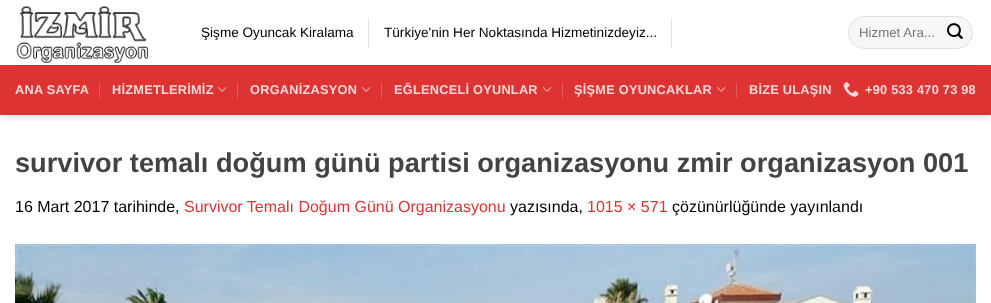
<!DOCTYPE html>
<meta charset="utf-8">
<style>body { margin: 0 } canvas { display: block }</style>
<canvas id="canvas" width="991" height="303"></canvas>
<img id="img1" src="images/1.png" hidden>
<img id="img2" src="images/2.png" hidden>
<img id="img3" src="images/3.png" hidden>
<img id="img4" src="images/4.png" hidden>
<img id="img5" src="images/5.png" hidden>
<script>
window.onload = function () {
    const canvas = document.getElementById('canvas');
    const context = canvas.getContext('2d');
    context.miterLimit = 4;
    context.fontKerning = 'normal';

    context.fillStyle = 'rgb(255, 255, 255)';
    context.fillRect(0, 0, 991, 303);
    context.save();
    context.beginPath();
    context.rect(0, 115, 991, 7);
    context.clip();
    context.fillStyle = 'rgba(0, 0, 0, 0.15)';
    context.filter = 'blur(5px)';
    context.beginPath();
    context.rect(1, 1, 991, 115);
    context.fill();
    context.filter = 'none';
    context.restore();
    context.drawImage(document.getElementById('img1'), 16, 6, 133, 57);
    context.fillStyle = 'rgb(230, 230, 230)';
    context.fillRect(368, 18, 1, 30);
    context.fillRect(671, 18, 1, 30);
    context.fillStyle = 'rgb(247, 247, 247)';
    context.beginPath();
    context.roundRect(848, 16, 125, 33, 16.5);
    context.fill();
    context.beginPath();
    context.roundRect(848.5, 16.5, 124, 32, 16);
    context.strokeStyle = 'rgba(0, 0, 0, 0.09)';
    context.stroke();
    context.drawImage(document.getElementById('img2'), 947, 23, 16, 16);
    context.fillStyle = 'rgb(221, 51, 51)';
    context.fillRect(0, 65, 991, 50);
    context.fillStyle = 'rgb(199, 46, 46)';
    context.fillRect(15, 65, 961, 1);
    context.fillStyle = 'rgb(228, 92, 92)';
    context.fillRect(99, 83, 1, 15);
    context.drawImage(document.getElementById('img3'), 217, 86, 10, 6);
    context.fillRect(237, 83, 1, 15);
    context.drawImage(document.getElementById('img3'), 361, 86, 10, 6);
    context.fillRect(381, 83, 1, 15);
    context.drawImage(document.getElementById('img3'), 542, 86, 10, 6);
    context.fillRect(562, 83, 1, 15);
    context.drawImage(document.getElementById('img3'), 716, 86, 10, 6);
    context.fillRect(736, 83, 1, 15);
    context.drawImage(document.getElementById('img4'), 843, 82, 16, 15);
    context.drawImage(document.getElementById('img5'), 15, 244, 961, 59);
    context.font = '13.6px Liberation Sans';
    context.fillStyle = 'rgb(0, 0, 0)';
    context.fillText('Şişme Oyuncak Kiralama', 201, 37);
    context.fillText('Türkiye\'nin Her Noktasında Hizmetinizdeyiz...', 384, 37);
    context.font = '13.25px Liberation Sans';
    context.fillStyle = 'rgb(117, 117, 117)';
    context.fillText('Hizmet Ara...', 859, 37);
    context.letterSpacing = '0.25px';
    context.font = 'bold 12.75px Liberation Sans';
    context.fillStyle = 'rgb(248, 214, 214)';
    context.fillText('ANA SAYFA', 15, 94);
    context.fillText('HİZMETLERİMİZ', 112, 94);
    context.fillText('ORGANİZASYON', 250, 94);
    context.fillText('EĞLENCELİ OYUNLAR', 394, 94);
    context.fillText('ŞİŞME OYUNCAKLAR', 574, 94);
    context.fillText('BİZE ULAŞIN', 749, 94);
    context.fillText('+90 533 470 73 98', 865, 94);
    context.letterSpacing = '0px';
    context.font = 'bold 27.2px Liberation Sans';
    context.fillStyle = 'rgb(70, 66, 66)';
    context.fillText('survivor temalı doğum günü partisi organizasyonu zmir organizasyon 001', 15, 172);
    context.font = '16px Liberation Sans';
    context.fillStyle = 'rgb(0, 0, 0)';
    context.fillText('16 Mart 2017 tarihinde,', 15, 212);
    context.fillStyle = 'rgb(221, 51, 51)';
    context.fillText('Survivor Temalı Doğum Günü Organizasyonu', 184, 212);
    context.fillStyle = 'rgb(0, 0, 0)';
    context.fillText('yazısında,', 510, 212);
    context.fillStyle = 'rgb(221, 51, 51)';
    context.fillText('1015 × 571', 587, 212);
    context.fillStyle = 'rgb(0, 0, 0)';
    context.fillText('çözünürlüğünde yayınlandı', 672, 212);
};
</script>
